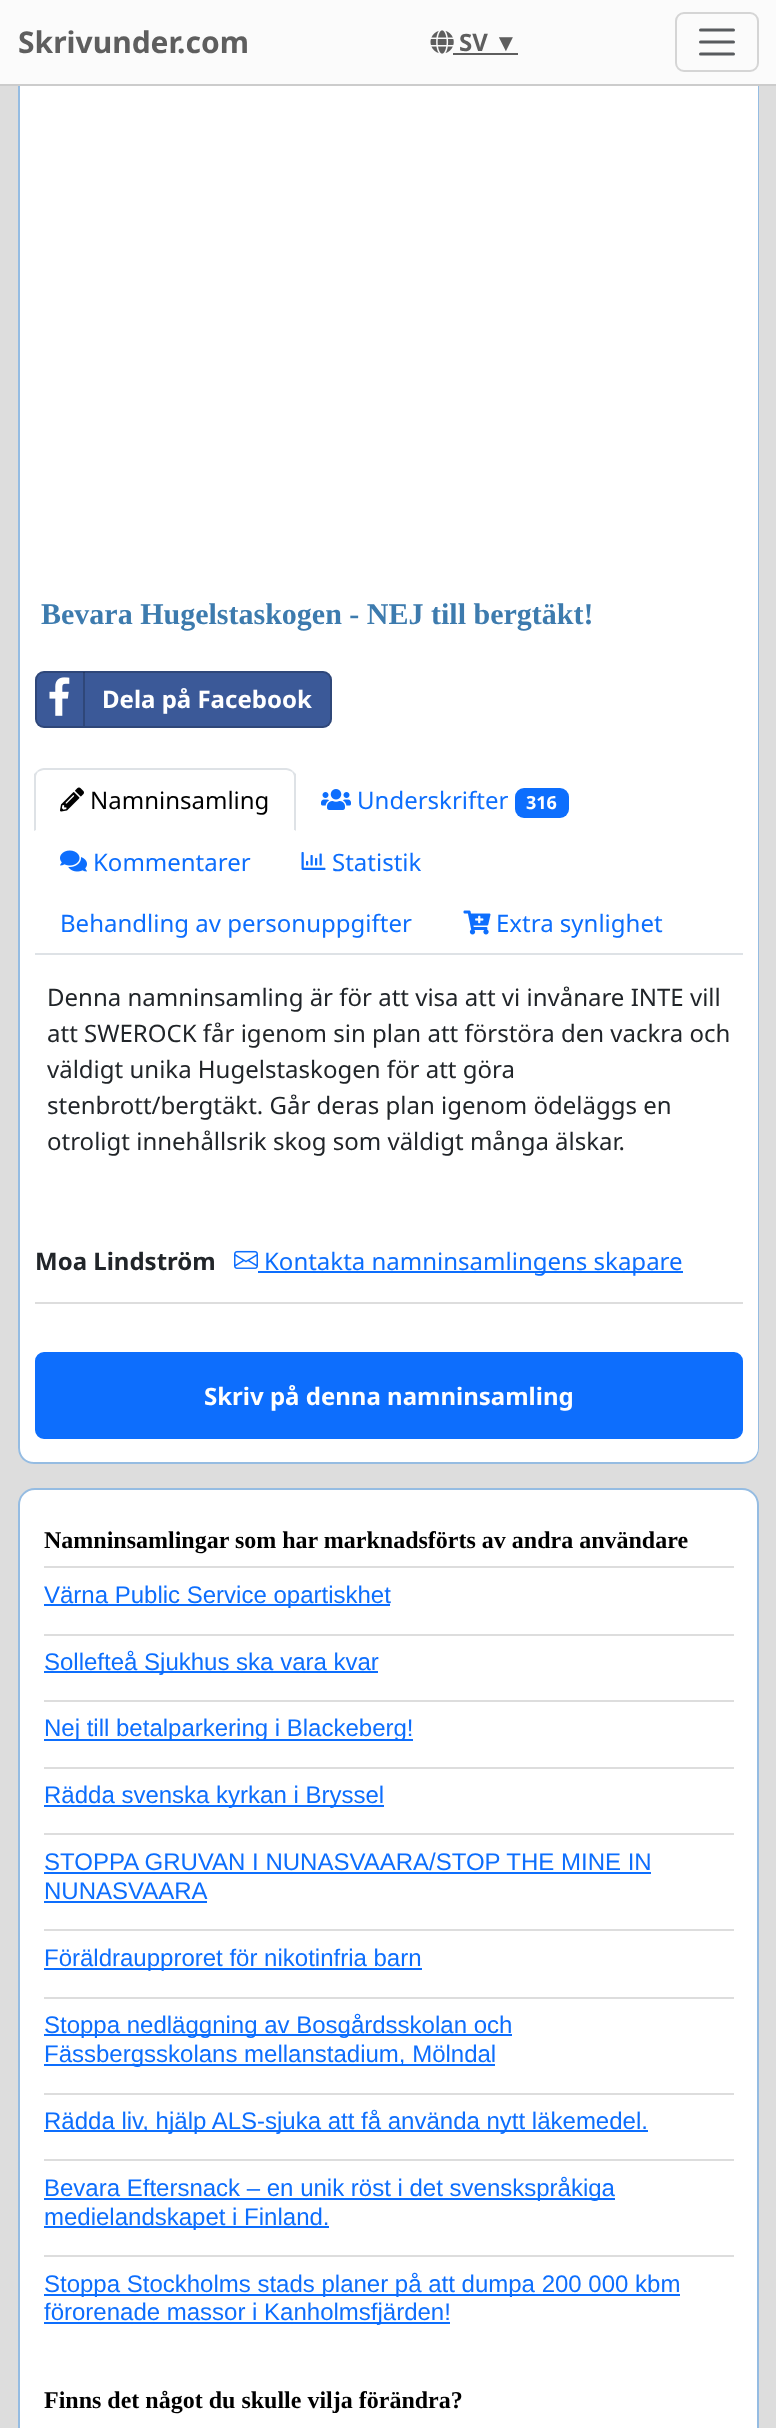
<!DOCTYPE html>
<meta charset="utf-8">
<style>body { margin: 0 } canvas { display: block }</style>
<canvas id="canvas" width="776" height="2428"></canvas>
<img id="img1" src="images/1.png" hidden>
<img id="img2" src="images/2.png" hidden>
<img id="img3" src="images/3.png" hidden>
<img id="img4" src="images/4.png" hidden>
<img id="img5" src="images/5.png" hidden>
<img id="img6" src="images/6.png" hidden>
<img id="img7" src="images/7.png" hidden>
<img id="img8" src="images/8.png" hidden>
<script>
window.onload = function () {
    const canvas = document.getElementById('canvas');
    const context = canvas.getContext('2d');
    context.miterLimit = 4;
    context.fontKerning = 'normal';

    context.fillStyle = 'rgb(221, 221, 221)';
    context.fillRect(0, 0, 776, 2428);
    context.fillStyle = 'rgb(251, 251, 251)';
    context.fillRect(0, 0, 776, 84);
    context.fillStyle = 'rgb(204, 204, 204)';
    context.fillRect(0, 84, 776, 2);
    context.drawImage(document.getElementById('img1'), 430, 30, 24, 24);
    context.fillStyle = 'rgb(94, 94, 94)';
    context.fillRect(453, 53, 65, 2);
    context.beginPath();
    context.roundRect(676, 13, 82, 58, 8);
    context.strokeStyle = 'rgb(213, 213, 213)';
    context.lineWidth = 2;
    context.stroke();
    context.beginPath();
    context.moveTo(700.5, 30);
    context.lineTo(733.5, 30);
    context.moveTo(700.5, 42);
    context.lineTo(733.5, 42);
    context.moveTo(700.5, 54);
    context.lineTo(733.5, 54);
    context.strokeStyle = 'rgb(88, 91, 94)';
    context.lineWidth = 3;
    context.lineCap = 'round';
    context.stroke();
    context.fillStyle = 'rgb(255, 255, 255)';
    context.beginPath();
    context.roundRect(18, 86, 741, 1378, [0, 0, 17, 17]);
    context.fill();
    context.fillStyle = 'rgb(149, 188, 226)';
    context.beginPath();
    context.moveTo(18, 86);
    context.lineTo(759, 86);
    context.lineTo(759, 1448);
    context.bezierCurveTo(759, 1457, 752, 1464, 742, 1464);
    context.lineTo(34, 1464);
    context.bezierCurveTo(25, 1464, 18, 1457, 18, 1448);
    context.closePath();
    context.moveTo(20, 86);
    context.lineTo(758, 86);
    context.lineTo(758, 1448);
    context.bezierCurveTo(758, 1456, 751, 1462, 742, 1462);
    context.lineTo(34, 1462);
    context.bezierCurveTo(26, 1462, 20, 1456, 20, 1448);
    context.closePath();
    context.fill('evenodd');
    context.fillStyle = 'rgb(59, 89, 152)';
    context.beginPath();
    context.roundRect(35, 671, 297, 57, 9);
    context.fill();
    context.beginPath();
    context.roundRect(36, 672, 295, 55, 8);
    context.strokeStyle = 'rgba(0, 0, 0, 0.2)';
    context.lineWidth = 2;
    context.stroke();
    context.fillStyle = 'rgba(0, 0, 0, 0.2)';
    context.fillRect(83, 672, 2, 54);
    context.drawImage(document.getElementById('img2'), 49, 677, 21, 39);
    context.fillStyle = 'rgb(222, 226, 230)';
    context.fillRect(35, 953, 708, 2);
    context.beginPath();
    context.moveTo(44, 768);
    context.bezierCurveTo(42, 768, 39, 769, 37, 771);
    context.lineTo(38, 772);
    context.bezierCurveTo(40, 771, 42, 770, 44, 770);
    context.lineTo(286, 770);
    context.bezierCurveTo(288, 770, 290, 771, 292, 772);
    context.lineTo(293, 771);
    context.bezierCurveTo(291, 769, 288, 768, 286, 768);
    context.closePath();
    context.fill();
    context.beginPath();
    context.moveTo(296, 774);
    context.lineTo(296, 831);
    context.lineTo(294, 830);
    context.lineTo(294, 777);
    context.bezierCurveTo(294, 775, 293, 773, 292, 772);
    context.lineTo(293, 771);
    context.closePath();
    context.fill();
    context.fillStyle = 'rgb(255, 255, 255)';
    context.beginPath();
    context.moveTo(296, 831);
    context.lineTo(294, 830);
    context.lineTo(36, 830);
    context.lineTo(34, 831);
    context.closePath();
    context.fill();
    context.fillStyle = 'rgb(222, 226, 230)';
    context.beginPath();
    context.moveTo(34, 831);
    context.lineTo(34, 774);
    context.lineTo(37, 771);
    context.lineTo(38, 772);
    context.bezierCurveTo(37, 773, 36, 775, 36, 777);
    context.lineTo(36, 830);
    context.closePath();
    context.fill();
    context.drawImage(document.getElementById('img3'), 60, 787, 24, 25);
    context.drawImage(document.getElementById('img4'), 321, 789, 30, 21);
    context.fillStyle = 'rgb(13, 110, 253)';
    context.beginPath();
    context.roundRect(515, 788, 54, 30, 9);
    context.fill();
    context.drawImage(document.getElementById('img5'), 60, 850, 27, 22);
    context.drawImage(document.getElementById('img6'), 301, 852, 25, 18);
    context.drawImage(document.getElementById('img7'), 463, 910, 28, 25);
    context.fillStyle = 'rgb(221, 221, 221)';
    context.fillRect(35, 1302, 708, 2);
    context.drawImage(document.getElementById('img8'), 234, 1250, 24, 19);
    context.fillStyle = 'rgb(13, 110, 253)';
    context.fillRect(258, 1271, 425, 2);
    context.beginPath();
    context.roundRect(36, 1353, 706, 85, 8);
    context.fill();
    context.strokeStyle = 'rgb(13, 110, 253)';
    context.stroke();
    context.fillStyle = 'rgb(255, 255, 255)';
    context.beginPath();
    context.moveTo(35, 1489);
    context.lineTo(742, 1489);
    context.bezierCurveTo(751, 1489, 758, 1496, 758, 1505);
    context.lineTo(758, 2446);
    context.lineTo(19, 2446);
    context.lineTo(19, 1505);
    context.bezierCurveTo(19, 1496, 26, 1489, 35, 1489);
    context.closePath();
    context.fill();
    context.strokeStyle = 'rgb(149, 188, 226)';
    context.stroke();
    context.fillStyle = 'rgb(221, 221, 221)';
    context.fillRect(44, 1566, 690, 2);
    context.fillStyle = 'rgb(13, 110, 253)';
    context.fillRect(44, 1604, 346, 2);
    context.fillStyle = 'rgb(221, 221, 221)';
    context.fillRect(44, 1634, 690, 2);
    context.fillStyle = 'rgb(13, 110, 253)';
    context.fillRect(44, 1671, 334, 2);
    context.fillStyle = 'rgb(221, 221, 221)';
    context.fillRect(44, 1700, 690, 2);
    context.fillStyle = 'rgb(13, 110, 253)';
    context.fillRect(44, 1739, 369, 2);
    context.fillStyle = 'rgb(221, 221, 221)';
    context.fillRect(44, 1767, 690, 2);
    context.fillStyle = 'rgb(13, 110, 253)';
    context.fillRect(44, 1805, 340, 2);
    context.fillStyle = 'rgb(221, 221, 221)';
    context.fillRect(44, 1833, 690, 2);
    context.fillStyle = 'rgb(13, 110, 253)';
    context.fillRect(44, 1872, 607, 2);
    context.fillRect(44, 1901, 163, 2);
    context.fillStyle = 'rgb(221, 221, 221)';
    context.fillRect(44, 1929, 690, 2);
    context.fillStyle = 'rgb(13, 110, 253)';
    context.fillRect(44, 1968, 378, 2);
    context.fillStyle = 'rgb(221, 221, 221)';
    context.fillRect(44, 1997, 690, 2);
    context.fillStyle = 'rgb(13, 110, 253)';
    context.fillRect(44, 2034, 468, 2);
    context.fillRect(44, 2064, 451, 2);
    context.fillStyle = 'rgb(221, 221, 221)';
    context.fillRect(44, 2093, 690, 2);
    context.fillStyle = 'rgb(13, 110, 253)';
    context.fillRect(44, 2130, 604, 2);
    context.fillStyle = 'rgb(221, 221, 221)';
    context.fillRect(44, 2159, 690, 2);
    context.fillStyle = 'rgb(13, 110, 253)';
    context.fillRect(44, 2198, 571, 2);
    context.fillRect(44, 2226, 285, 2);
    context.fillStyle = 'rgb(221, 221, 221)';
    context.fillRect(44, 2255, 690, 2);
    context.fillStyle = 'rgb(13, 110, 253)';
    context.fillRect(44, 2294, 636, 2);
    context.fillRect(44, 2322, 406, 2);
    context.font = 'bold 30px Noto Sans';
    context.fillStyle = 'rgb(94, 94, 94)';
    context.fillText('Skrivunder.com', 18, 53);
    context.font = 'bold 24px Noto Sans';
    context.fillText('SV', 459, 51);
    context.font = '24px Liberation Sans';
    context.fillText('▼', 494, 51);
    context.font = 'bold 30px Liberation Serif';
    context.fillStyle = 'rgb(61, 123, 174)';
    context.fillText('Bevara Hugelstaskogen - NEJ till bergtäkt!', 41, 624);
    context.font = 'bold 24px Noto Sans';
    context.fillStyle = 'rgb(255, 255, 255)';
    context.fillText('Dela på Facebook', 102, 708);
    context.font = '24px Noto Sans';
    context.fillStyle = 'rgb(0, 0, 0)';
    context.fillText('Namninsamling', 90, 809);
    context.fillStyle = 'rgb(13, 110, 253)';
    context.fillText('Underskrifter', 357, 809);
    context.font = 'bold 18px Noto Sans';
    context.fillStyle = 'rgb(255, 255, 255)';
    context.fillText('316', 526, 809);
    context.font = '24px Noto Sans';
    context.fillStyle = 'rgb(13, 110, 253)';
    context.fillText('Kommentarer', 93, 871);
    context.fillText('Statistik', 332, 871);
    context.fillText('Behandling av personuppgifter', 60, 932);
    context.fillText('Extra synlighet', 496, 932);
    context.fillStyle = 'rgb(33, 37, 41)';
    context.fillText('Denna namninsamling är för att visa att vi invånare INTE vill', 47, 1006);
    context.fillText('att SWEROCK får igenom sin plan att förstöra den vackra och', 47, 1042);
    context.fillText('väldigt unika Hugelstaskogen för att göra', 47, 1078);
    context.fillText('stenbrott/bergtäkt. Går deras plan igenom ödeläggs en', 47, 1114);
    context.fillText('otroligt innehållsrik skog som väldigt många älskar.', 47, 1150);
    context.font = 'bold 24px Noto Sans';
    context.fillText('Moa Lindström', 35, 1270);
    context.font = '24px Noto Sans';
    context.fillStyle = 'rgb(13, 110, 253)';
    context.fillText('Kontakta namninsamlingens skapare', 264, 1270);
    context.font = 'bold 24px Noto Sans';
    context.fillStyle = 'rgb(255, 255, 255)';
    context.fillText('Skriv på denna namninsamling', 204, 1405);
    context.font = 'bold 24px Liberation Serif';
    context.fillStyle = 'rgb(0, 0, 0)';
    context.fillText('Namninsamlingar som har marknadsförts av andra användare', 44, 1548);
    context.font = '24px Liberation Sans';
    context.fillStyle = 'rgb(13, 110, 253)';
    context.fillText('Värna Public Service opartiskhet', 44, 1603);
    context.fillText('Sollefteå Sjukhus ska vara kvar', 44, 1670);
    context.fillText('Nej till betalparkering i Blackeberg!', 44, 1736);
    context.fillText('Rädda svenska kyrkan i Bryssel', 44, 1803);
    context.fillText('STOPPA GRUVAN I NUNASVAARA/STOP THE MINE IN', 44, 1870);
    context.fillText('NUNASVAARA', 44, 1899);
    context.fillText('Föräldraupproret för nikotinfria barn', 44, 1966);
    context.fillText('Stoppa nedläggning av Bosgårdsskolan och', 44, 2033);
    context.fillText('Fässbergsskolans mellanstadium, Mölndal', 44, 2062);
    context.fillText('Rädda liv, hjälp ALS-sjuka att få använda nytt läkemedel.', 44, 2129);
    context.fillText('Bevara Eftersnack – en unik röst i det svenskspråkiga', 44, 2196);
    context.fillText('medielandskapet i Finland.', 44, 2225);
    context.fillText('Stoppa Stockholms stads planer på att dumpa 200 000 kbm', 44, 2292);
    context.fillText('förorenade massor i Kanholmsfjärden!', 44, 2320);
    context.font = 'bold 24px Liberation Serif';
    context.fillStyle = 'rgb(0, 0, 0)';
    context.fillText('Finns det något du skulle vilja förändra?', 44, 2408);
};
</script>
